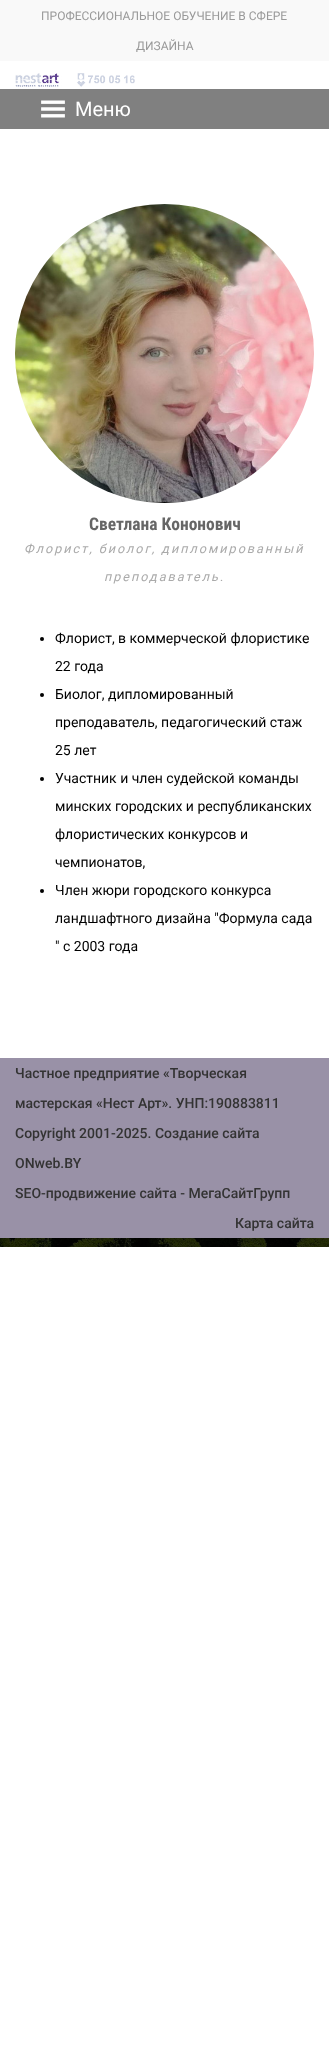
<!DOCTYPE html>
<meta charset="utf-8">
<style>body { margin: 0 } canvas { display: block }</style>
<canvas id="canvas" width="329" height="2049"></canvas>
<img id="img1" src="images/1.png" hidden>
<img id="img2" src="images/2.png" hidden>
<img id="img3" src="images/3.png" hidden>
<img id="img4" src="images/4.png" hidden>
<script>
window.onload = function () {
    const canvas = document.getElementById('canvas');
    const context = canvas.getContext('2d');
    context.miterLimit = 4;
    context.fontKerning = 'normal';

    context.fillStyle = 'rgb(255, 255, 255)';
    context.fillRect(0, 0, 329, 2049);
    context.fillStyle = 'rgb(249, 249, 249)';
    context.fillRect(0, 0, 329, 61);
    context.drawImage(document.getElementById('img1'), 15, 73, 120, 14);
    context.fillStyle = 'rgb(128, 128, 128)';
    context.fillRect(0, 89, 329, 40);
    context.drawImage(document.getElementById('img2'), 41, 100, 24, 18);
    context.drawImage(document.getElementById('img3'), 15, 204, 299, 299);
    context.fillStyle = 'rgb(0, 0, 0)';
    context.beginPath();
    context.arc(42, 639, 2, 0, 2 * Math.PI);
    context.fill();
    context.beginPath();
    context.arc(42, 695, 2, 0, 2 * Math.PI);
    context.fill();
    context.beginPath();
    context.arc(42, 779, 2, 0, 2 * Math.PI);
    context.fill();
    context.beginPath();
    context.arc(42, 891, 2, 0, 2 * Math.PI);
    context.fill();
    context.drawImage(document.getElementById('img4'), 0, 1238, 329, 9);
    context.fillStyle = 'rgb(153, 145, 167)';
    context.fillRect(0, 1058, 329, 180);
    context.font = '12px Roboto';
    context.fillStyle = 'rgb(153, 153, 153)';
    context.fillText('ПРОФЕССИОНАЛЬНОЕ ОБУЧЕНИЕ В СФЕРЕ', 41, 20);
    context.fillText('ДИЗАЙНА', 136, 50);
    context.font = '20px Roboto';
    context.fillStyle = 'rgb(255, 255, 255)';
    context.fillText('Меню', 75, 116);
    context.font = 'bold 17.5px Roboto Condensed';
    context.fillStyle = 'rgb(102, 102, 102)';
    context.fillText('Светлана Кононович', 89, 530);
    context.letterSpacing = '2px';
    context.font = 'italic 12.6px Roboto';
    context.fillStyle = 'rgb(170, 170, 170)';
    context.fillText('Флорист, биолог, дипломированный', 24, 553);
    context.fillText('преподаватель.', 104, 581);
    context.letterSpacing = '0px';
    context.font = '14px Roboto';
    context.fillStyle = 'rgb(0, 0, 0)';
    context.fillText('Флорист, в коммерческой флористике', 55, 643);
    context.fillText('22 года', 55, 671);
    context.fillText('Биолог, дипломированный', 55, 699);
    context.fillText('преподаватель, педагогический стаж', 55, 727);
    context.fillText('25 лет', 55, 755);
    context.fillText('Участник и член судейской команды', 55, 783);
    context.fillText('минских городских и республиканских', 55, 811);
    context.fillText('флористических конкурсов и', 55, 839);
    context.fillText('чемпионатов,', 55, 867);
    context.fillText('Член жюри городского конкурса', 55, 895);
    context.fillText('ландшафтного дизайна "Формула сада', 55, 923);
    context.fillText('" с 2003 года', 55, 951);
    context.font = '500 14px Roboto';
    context.fillStyle = 'rgb(51, 51, 51)';
    context.fillText('Частное предприятие «Творческая', 15, 1078);
    context.fillText('мастерская «Нест Арт». УНП:190883811', 15, 1108);
    context.fillText('Copyright 2001-2025. Создание сайта', 15, 1138);
    context.fillText('ONweb.BY', 15, 1168);
    context.fillText('SEO-продвижение сайта - МегаСайтГрупп', 15, 1198);
    context.fillText('Карта сайта', 235, 1228);
};
</script>
